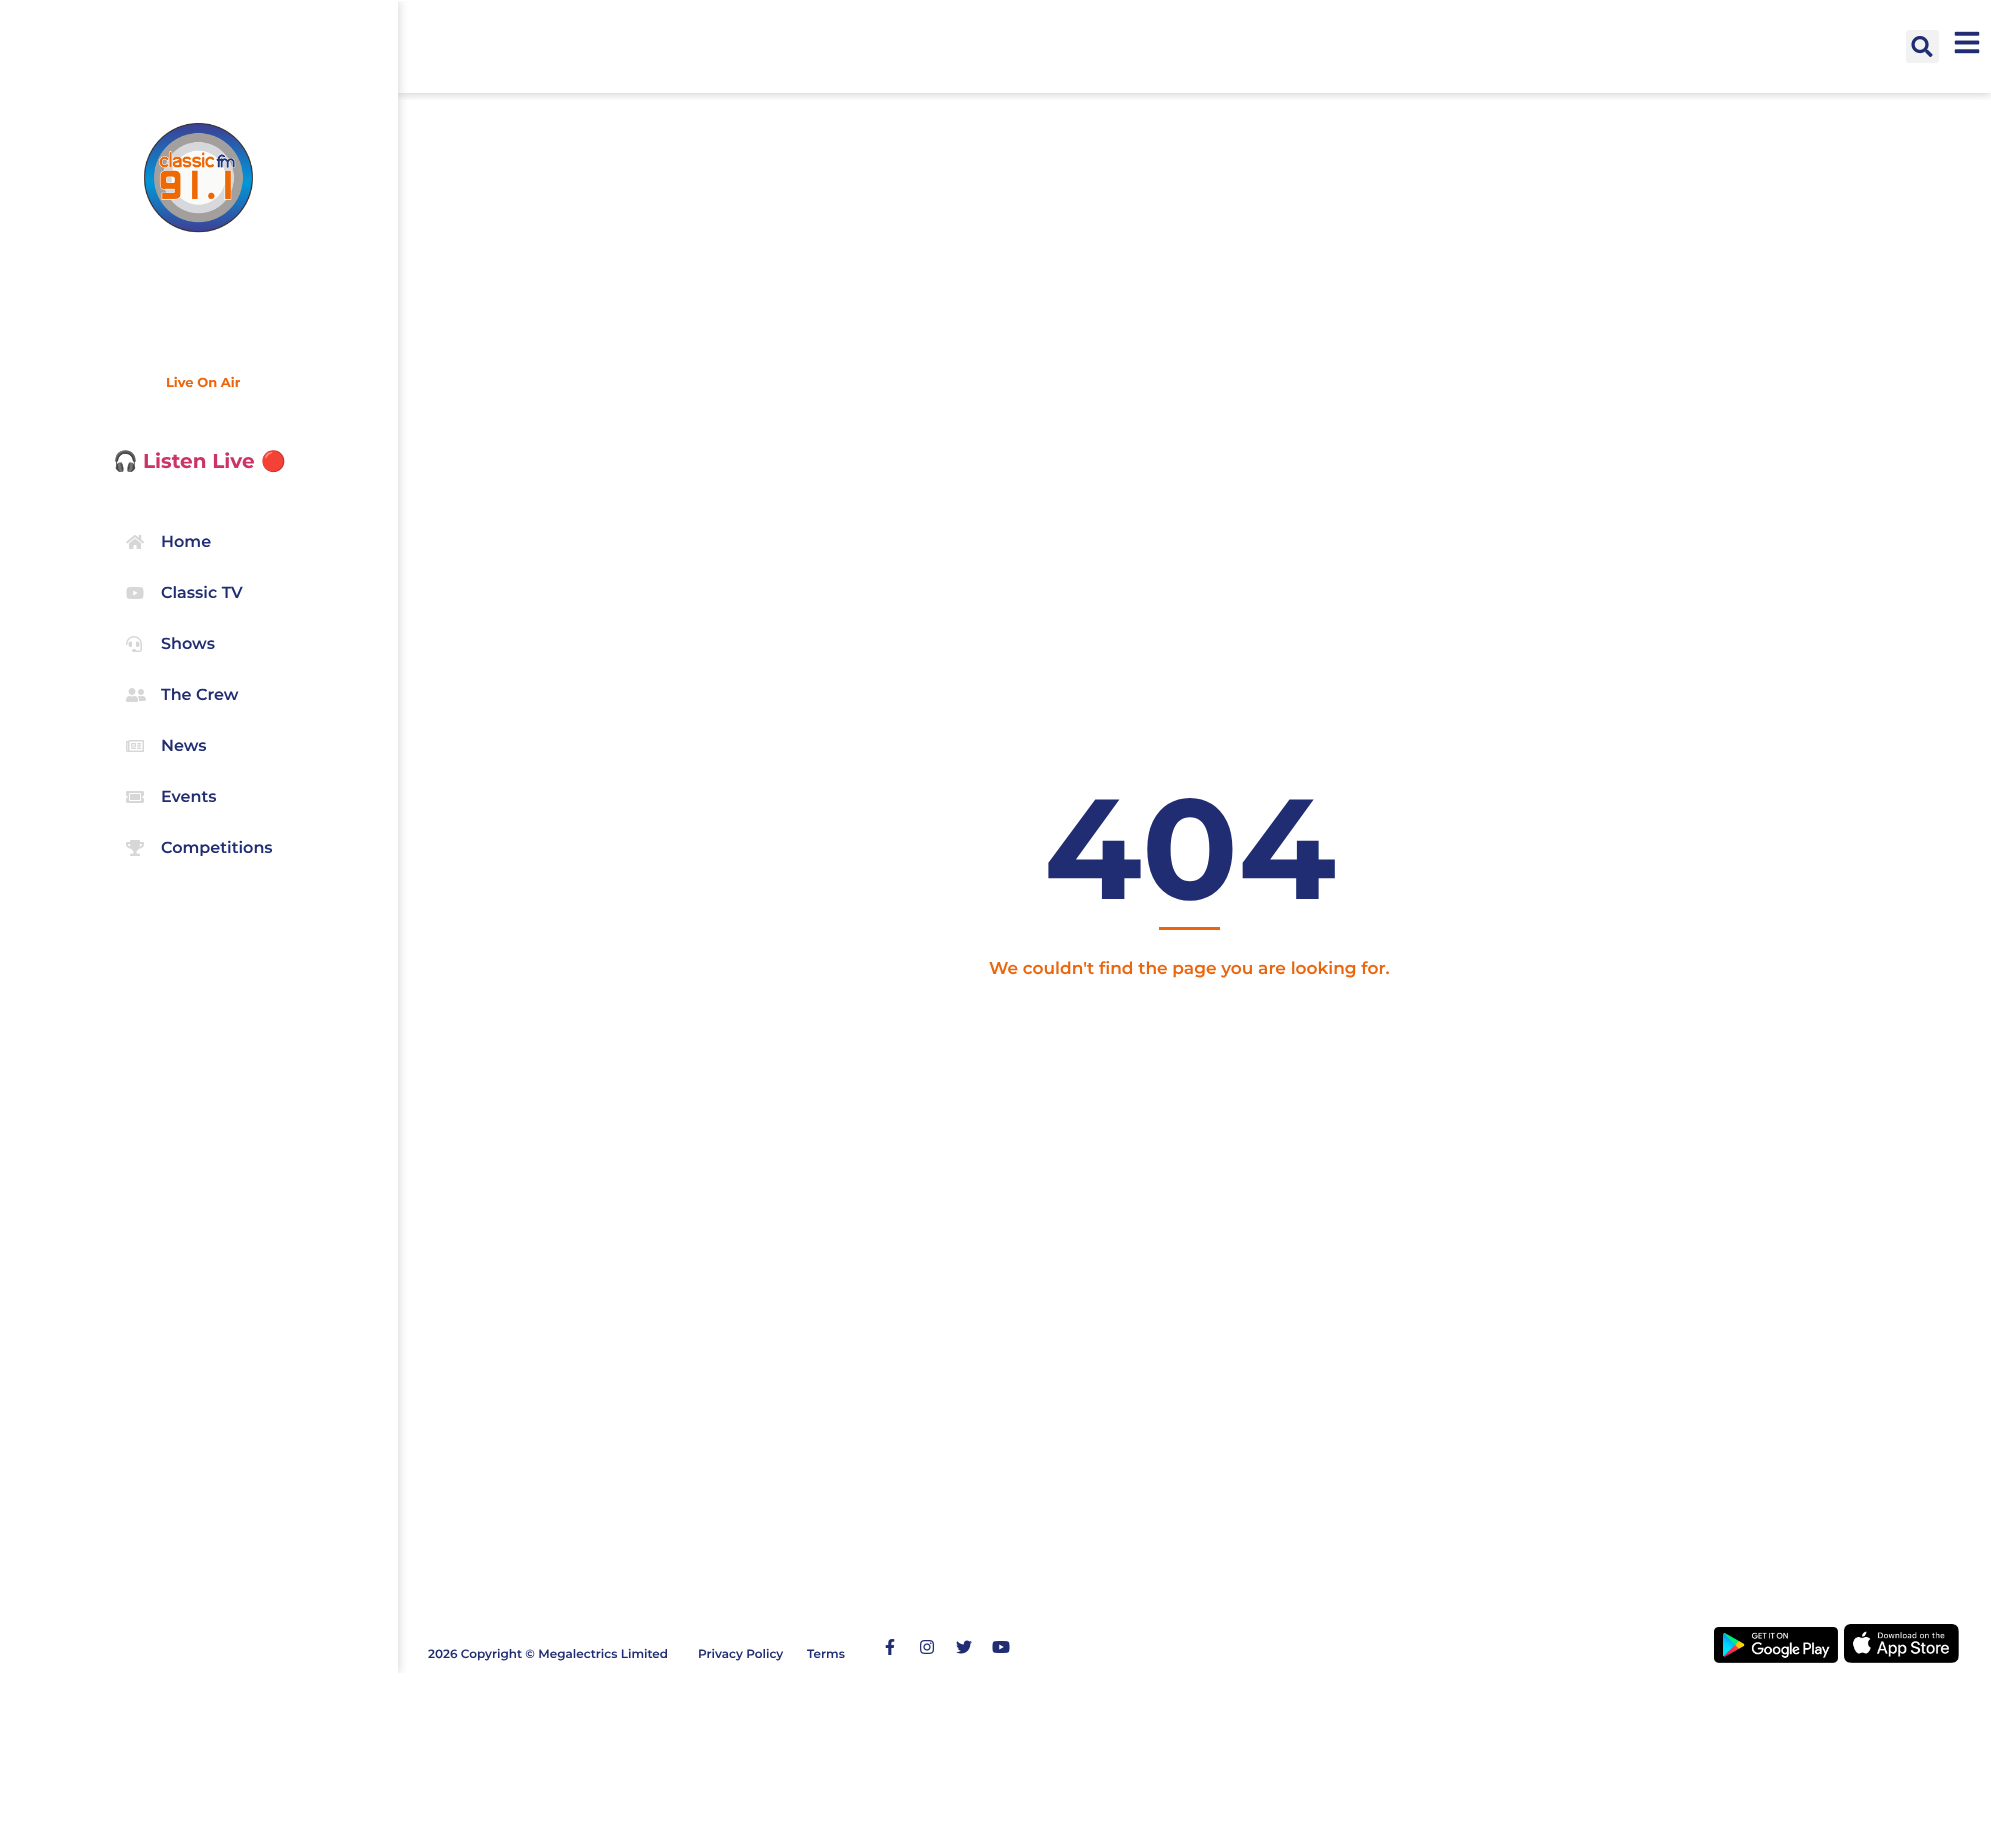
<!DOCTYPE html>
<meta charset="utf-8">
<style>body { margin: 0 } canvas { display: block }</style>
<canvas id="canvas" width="1991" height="1835"></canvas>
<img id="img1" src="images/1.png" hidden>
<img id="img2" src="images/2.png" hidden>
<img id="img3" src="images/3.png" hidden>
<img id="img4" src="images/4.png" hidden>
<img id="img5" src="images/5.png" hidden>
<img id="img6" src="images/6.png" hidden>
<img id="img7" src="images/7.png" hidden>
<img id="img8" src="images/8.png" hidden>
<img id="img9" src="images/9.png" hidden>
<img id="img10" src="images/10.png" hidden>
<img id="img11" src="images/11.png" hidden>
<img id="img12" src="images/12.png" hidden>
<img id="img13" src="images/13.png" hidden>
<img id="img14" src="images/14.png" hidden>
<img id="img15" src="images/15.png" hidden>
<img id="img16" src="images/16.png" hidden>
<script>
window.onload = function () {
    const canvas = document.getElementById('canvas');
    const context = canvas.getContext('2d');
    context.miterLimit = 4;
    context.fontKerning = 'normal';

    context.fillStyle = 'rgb(255, 255, 255)';
    context.fillRect(0, 0, 1991, 1835);
    context.save();
    context.beginPath();
    context.rect(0, 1, 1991, 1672);
    context.clip();
    context.fillStyle = 'rgba(0, 0, 0, 0.16)';
    context.filter = 'blur(5px)';
    context.beginPath();
    context.rect(1, 1, 398, 1672);
    context.fill();
    context.filter = 'none';
    context.restore();
    context.save();
    context.beginPath();
    context.rect(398, 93, 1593, 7);
    context.clip();
    context.fillStyle = 'rgba(0, 0, 0, 0.2)';
    context.filter = 'blur(5px)';
    context.beginPath();
    context.rect(398, 2, 1593, 92);
    context.fill();
    context.filter = 'none';
    context.restore();
    context.fillRect(0, 1, 398, 1672);
    context.drawImage(document.getElementById('img1'), 144, 123, 109, 110);
    context.drawImage(document.getElementById('img2'), 126, 535, 18, 14);
    context.drawImage(document.getElementById('img3'), 126, 587, 18, 12);
    context.drawImage(document.getElementById('img4'), 126, 636, 16, 16);
    context.drawImage(document.getElementById('img5'), 126, 688, 20, 14);
    context.drawImage(document.getElementById('img6'), 126, 740, 18, 12);
    context.drawImage(document.getElementById('img7'), 126, 791, 18, 12);
    context.drawImage(document.getElementById('img8'), 126, 840, 18, 16);
    context.fillStyle = 'rgb(242, 242, 242)';
    context.beginPath();
    context.roundRect(1906, 30, 33, 33, 3);
    context.fill();
    context.drawImage(document.getElementById('img9'), 1911, 36, 22, 22);
    context.drawImage(document.getElementById('img10'), 1954, 31, 26, 23);
    context.fillStyle = 'rgb(235, 101, 13)';
    context.fillRect(1159, 927, 61, 3);
    context.drawImage(document.getElementById('img11'), 885, 1639, 10, 16);
    context.drawImage(document.getElementById('img12'), 920, 1640, 14, 14);
    context.drawImage(document.getElementById('img13'), 956, 1640, 16, 14);
    context.drawImage(document.getElementById('img14'), 992, 1641, 18, 12);
    context.drawImage(document.getElementById('img15'), 1714, 1627, 124, 36);
    context.drawImage(document.getElementById('img16'), 1844, 1624, 115, 39);
    context.font = 'bold 13px Montserrat';
    context.fillText('Live On Air', 166, 387);
    context.font = 'bold 20px Noto Color Emoji';
    context.fillStyle = 'rgb(204, 51, 102)';
    context.fillText('🎧', 113, 468);
    context.font = 'bold 20px Montserrat';
    context.fillText('Listen Live', 143, 468);
    context.font = 'bold 20px Noto Color Emoji';
    context.fillText('🔴', 261, 468);
    context.font = '600 16px Montserrat';
    context.fillStyle = 'rgb(33, 45, 114)';
    context.fillText('Home', 161, 547);
    context.fillText('Classic TV', 161, 598);
    context.fillText('Shows', 161, 649);
    context.fillText('The Crew', 161, 700);
    context.fillText('News', 161, 751);
    context.fillText('Events', 161, 802);
    context.fillText('Competitions', 161, 853);
    context.font = 'bold 142px Montserrat';
    context.fillText('404', 1044, 899);
    context.font = '600 17px Montserrat';
    context.fillStyle = 'rgb(235, 101, 13)';
    context.fillText('We couldn\'t find the page you are looking for.', 989, 974);
    context.font = '600 12px Montserrat';
    context.fillStyle = 'rgb(33, 45, 114)';
    context.fillText('2026 Copyright © Megalectrics Limited', 428, 1658);
    context.fillText('Privacy Policy', 698, 1658);
    context.fillText('Terms', 807, 1658);
};
</script>
